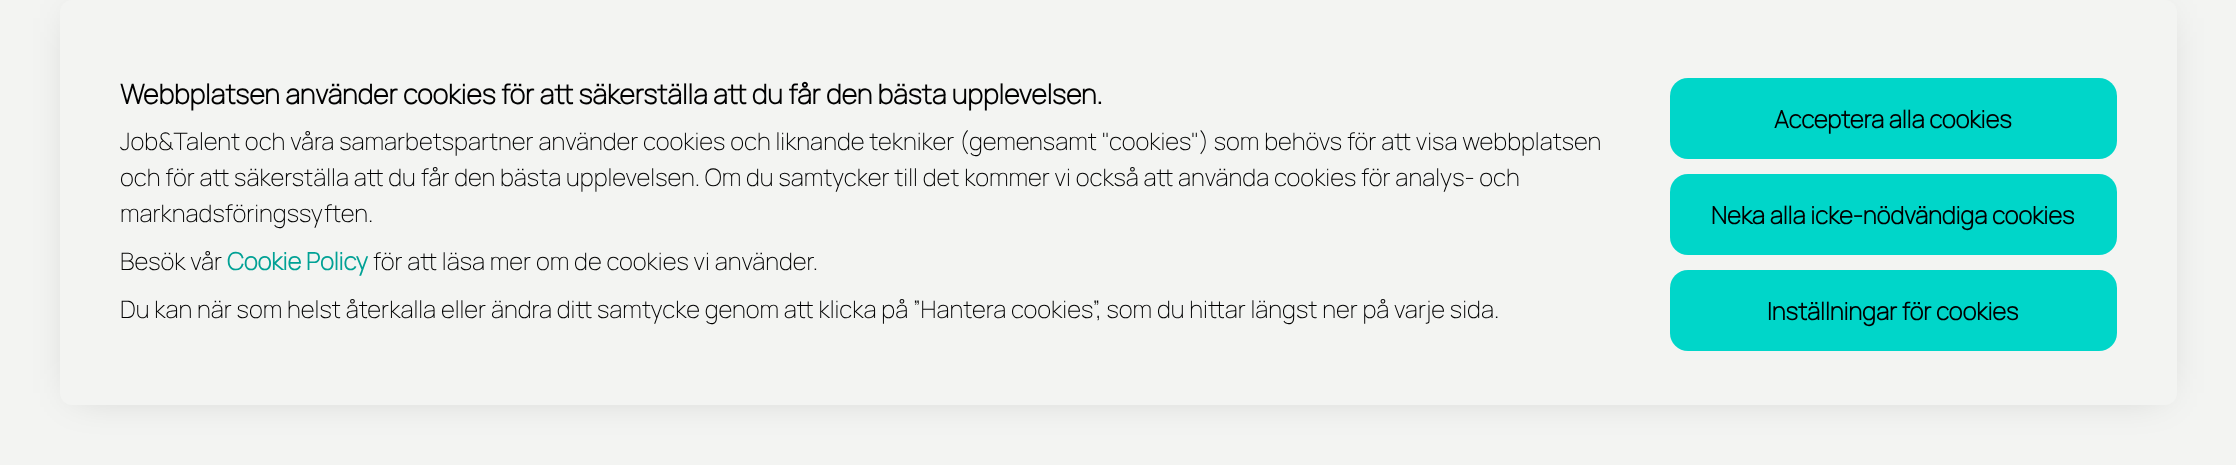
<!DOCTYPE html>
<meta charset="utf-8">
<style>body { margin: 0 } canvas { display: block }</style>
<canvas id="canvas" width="2236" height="465"></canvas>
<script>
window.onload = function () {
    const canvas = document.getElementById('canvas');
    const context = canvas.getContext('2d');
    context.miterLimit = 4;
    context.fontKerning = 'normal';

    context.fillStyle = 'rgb(243, 244, 242)';
    context.fillRect(0, 0, 2236, 465);
    context.fillStyle = 'rgba(0, 0, 0, 0.18)';
    context.filter = 'blur(20px)';
    context.beginPath();
    context.rect(75, 18, 2087, 375);
    context.fill();
    context.filter = 'none';
    context.fillStyle = 'rgb(243, 244, 242)';
    context.beginPath();
    context.roundRect(60, 0, 2117, 405, 12);
    context.fill();
    context.fillStyle = 'rgb(0, 214, 201)';
    context.beginPath();
    context.roundRect(1670, 78, 447, 81, 18);
    context.fill();
    context.beginPath();
    context.roundRect(1670, 174, 447, 81, 18);
    context.fill();
    context.beginPath();
    context.roundRect(1670, 270, 447, 81, 18);
    context.fill();
    context.font = 'bold 27px Manrope';
    context.fillStyle = 'rgb(0, 0, 0)';
    context.fillText('Webbplatsen använder cookies för att säkerställa att du får den bästa upplevelsen.', 120, 104);
    context.font = '200 24px Manrope';
    context.fillText('Job&Talent och våra samarbetspartner använder cookies och liknande tekniker (gemensamt "cookies") som behövs för att visa webbplatsen', 120, 150);
    context.fillText('och för att säkerställa att du får den bästa upplevelsen. Om du samtycker till det kommer vi också att använda cookies för analys- och', 120, 186);
    context.fillText('marknadsföringssyften.', 120, 222);
    context.fillText('Besök vår', 120, 270);
    context.font = 'bold 24px Manrope';
    context.fillStyle = 'rgb(0, 161, 149)';
    context.fillText('Cookie Policy', 227, 270);
    context.font = '200 24px Manrope';
    context.fillStyle = 'rgb(0, 0, 0)';
    context.fillText('för att läsa mer om de cookies vi använder.', 373, 270);
    context.fillText('Du kan när som helst återkalla eller ändra ditt samtycke genom att klicka på ”Hantera cookies”, som du hittar längst ner på varje sida.', 120, 318);
    context.font = 'bold 24px Manrope';
    context.fillText('Acceptera alla cookies', 1774, 128);
    context.fillText('Neka alla icke-nödvändiga cookies', 1711, 224);
    context.fillText('Inställningar för cookies', 1767, 320);
};
</script>
